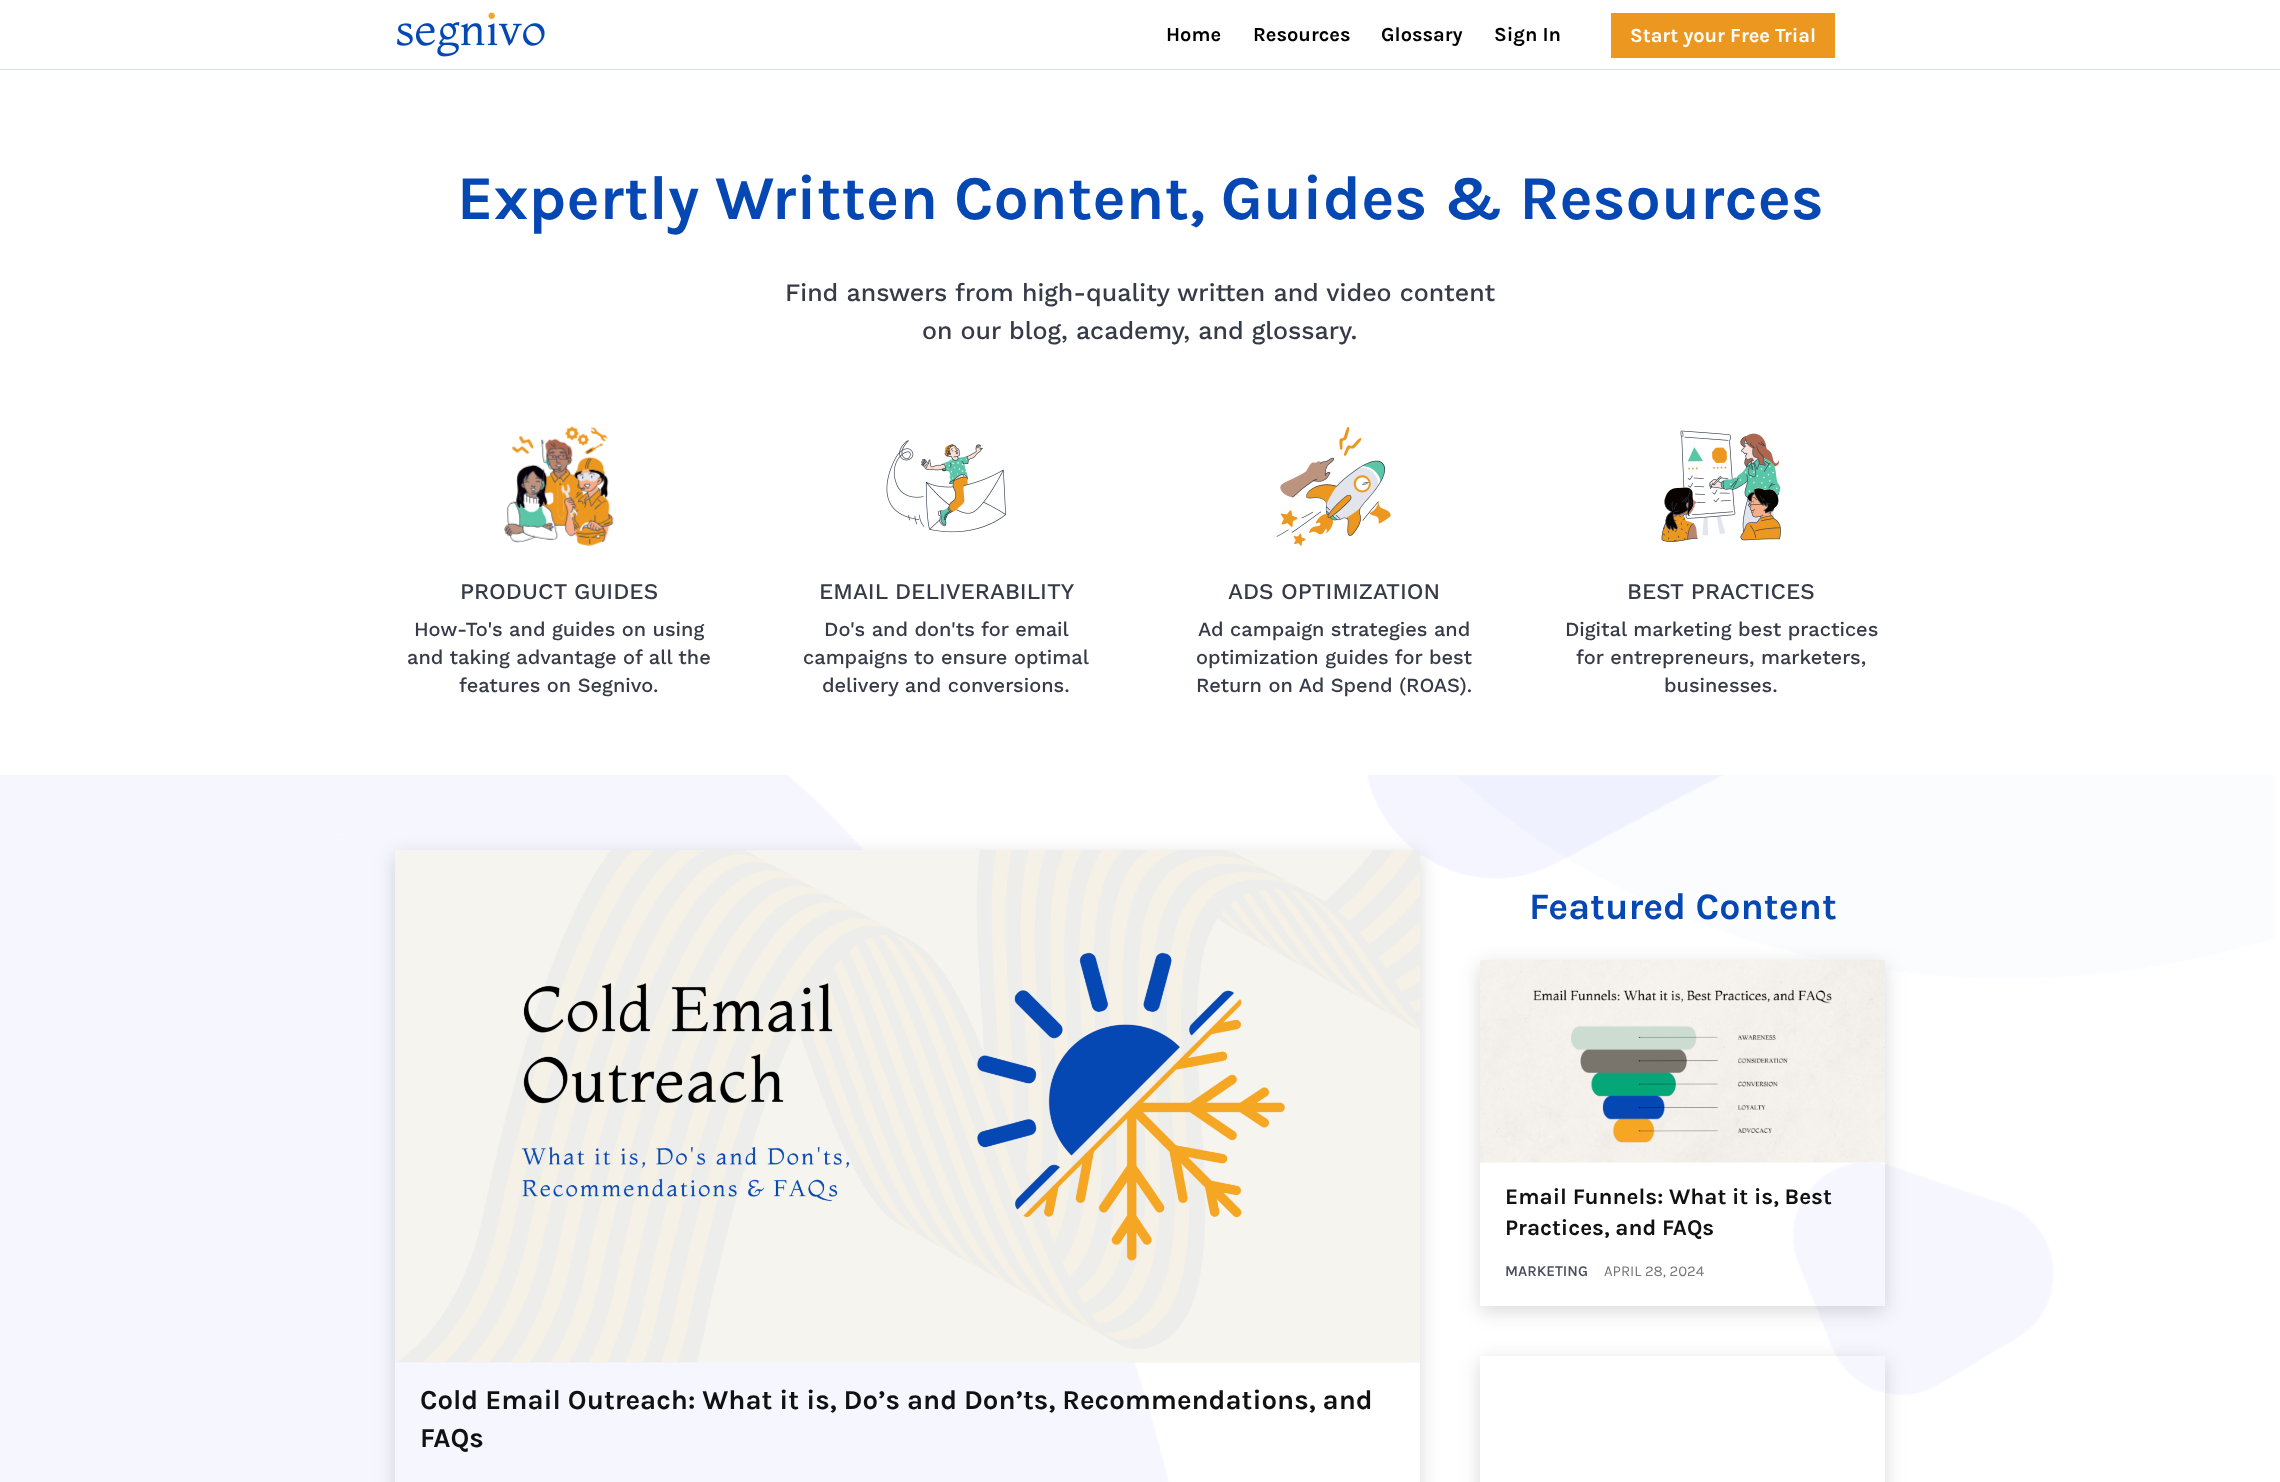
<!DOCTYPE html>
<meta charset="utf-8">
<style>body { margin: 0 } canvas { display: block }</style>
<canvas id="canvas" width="2280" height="1482"></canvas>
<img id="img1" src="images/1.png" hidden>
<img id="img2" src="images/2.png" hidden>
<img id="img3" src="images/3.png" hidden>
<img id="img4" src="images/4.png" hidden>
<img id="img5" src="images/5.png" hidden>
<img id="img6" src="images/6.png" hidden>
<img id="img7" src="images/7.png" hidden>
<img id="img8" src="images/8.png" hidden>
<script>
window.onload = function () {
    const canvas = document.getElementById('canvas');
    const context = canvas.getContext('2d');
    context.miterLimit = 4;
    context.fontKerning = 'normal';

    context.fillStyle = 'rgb(255, 255, 255)';
    context.fillRect(0, 0, 2280, 1482);
    context.drawImage(document.getElementById('img1'), 397, 12, 148, 45);
    context.fillStyle = 'rgb(236, 151, 31)';
    context.fillRect(1611, 13, 224, 45);
    context.fillStyle = 'rgb(218, 223, 231)';
    context.fillRect(0, 69, 2280, 1);
    context.drawImage(document.getElementById('img2'), 504, 426, 110, 120);
    context.drawImage(document.getElementById('img3'), 886, 440, 120, 93);
    context.drawImage(document.getElementById('img4'), 1276, 426, 115, 120);
    context.drawImage(document.getElementById('img5'), 1661, 430, 120, 112);
    context.drawImage(document.getElementById('img6'), 0, 775, 2275, 707);
    context.save();
    context.beginPath();
    context.moveTo(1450, 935);
    context.lineTo(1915, 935);
    context.lineTo(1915, 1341);
    context.lineTo(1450, 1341);
    context.closePath();
    context.moveTo(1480, 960);
    context.lineTo(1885, 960);
    context.lineTo(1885, 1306);
    context.lineTo(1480, 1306);
    context.closePath();
    context.clip('evenodd');
    context.fillStyle = 'rgba(0, 0, 0, 0.15)';
    context.filter = 'blur(9.5px)';
    context.beginPath();
    context.rect(1480, 965, 405, 346);
    context.fill();
    context.filter = 'none';
    context.restore();
    context.drawImage(document.getElementById('img7'), 1480, 960, 405, 203);
    context.save();
    context.beginPath();
    context.moveTo(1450, 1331);
    context.lineTo(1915, 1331);
    context.lineTo(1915, 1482);
    context.lineTo(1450, 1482);
    context.closePath();
    context.moveTo(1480, 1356);
    context.lineTo(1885, 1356);
    context.lineTo(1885, 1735);
    context.lineTo(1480, 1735);
    context.closePath();
    context.clip('evenodd');
    context.fillStyle = 'rgba(0, 0, 0, 0.15)';
    context.filter = 'blur(9.5px)';
    context.beginPath();
    context.rect(1480, 1361, 405, 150);
    context.fill();
    context.filter = 'none';
    context.restore();
    context.save();
    context.beginPath();
    context.moveTo(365, 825);
    context.lineTo(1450, 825);
    context.lineTo(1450, 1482);
    context.lineTo(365, 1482);
    context.closePath();
    context.moveTo(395, 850);
    context.lineTo(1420, 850);
    context.lineTo(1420, 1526);
    context.lineTo(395, 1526);
    context.closePath();
    context.clip('evenodd');
    context.fillStyle = 'rgba(0, 0, 0, 0.15)';
    context.filter = 'blur(9.5px)';
    context.beginPath();
    context.rect(395, 855, 1025, 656);
    context.fill();
    context.filter = 'none';
    context.restore();
    context.drawImage(document.getElementById('img8'), 395, 850, 1025, 513);
    context.font = 'bold 20px Karla';
    context.fillStyle = 'rgb(0, 0, 0)';
    context.fillText('Home', 1166, 41);
    context.fillText('Resources', 1253, 41);
    context.fillText('Glossary', 1381, 41);
    context.fillText('Sign In', 1494, 41);
    context.fillStyle = 'rgb(255, 255, 255)';
    context.fillText('Start your Free Trial', 1630, 42);
    context.font = 'bold 62.5px Karla';
    context.fillStyle = 'rgb(6, 72, 179)';
    context.fillText('Expertly Written Content, Guides & Resources', 457, 219);
    context.font = '500 25px Work Sans';
    context.fillStyle = 'rgb(54, 59, 71)';
    context.fillText('Find answers from high-quality written and video content', 785, 301);
    context.fillText('on our blog, academy, and glossary.', 922, 339);
    context.font = '500 22.5px Work Sans';
    context.fillText('PRODUCT GUIDES', 460, 599);
    context.font = '500 20px Work Sans';
    context.fillText('How-To\'s and guides on using', 414, 636);
    context.fillText('and taking advantage of all the', 407, 664);
    context.fillText('features on Segnivo.', 459, 692);
    context.font = '500 22.5px Work Sans';
    context.fillText('EMAIL DELIVERABILITY', 819, 599);
    context.font = '500 20px Work Sans';
    context.fillText('Do\'s and don\'ts for email', 824, 636);
    context.fillText('campaigns to ensure optimal', 803, 664);
    context.fillText('delivery and conversions.', 822, 692);
    context.font = '500 22.5px Work Sans';
    context.fillText('ADS OPTIMIZATION', 1228, 599);
    context.font = '500 20px Work Sans';
    context.fillText('Ad campaign strategies and', 1198, 636);
    context.fillText('optimization guides for best', 1196, 664);
    context.fillText('Return on Ad Spend (ROAS).', 1196, 692);
    context.font = '500 22.5px Work Sans';
    context.fillText('BEST PRACTICES', 1627, 599);
    context.font = '500 20px Work Sans';
    context.fillText('Digital marketing best practices', 1565, 636);
    context.fillText('for entrepreneurs, marketers,', 1576, 664);
    context.fillText('businesses.', 1664, 692);
    context.font = 'bold 37.5px Karla';
    context.fillStyle = 'rgb(6, 72, 179)';
    context.fillText('Featured Content', 1529, 919);
    context.font = 'bold 22.5px Karla';
    context.fillStyle = 'rgb(17, 17, 17)';
    context.fillText('Email Funnels: What it is, Best', 1505, 1204);
    context.fillText('Practices, and FAQs', 1505, 1235);
    context.font = '600 15px Karla';
    context.fillStyle = 'rgb(73, 79, 92)';
    context.fillText('MARKETING', 1505, 1276);
    context.font = '15px Karla';
    context.fillStyle = 'rgb(118, 118, 118)';
    context.fillText('APRIL 28, 2024', 1604, 1276);
    context.font = 'bold 27.5px Karla';
    context.fillStyle = 'rgb(17, 17, 17)';
    context.fillText('Cold Email Outreach: What it is, Do’s and Don’ts, Recommendations, and', 420, 1409);
    context.fillText('FAQs', 420, 1447);
};
</script>
